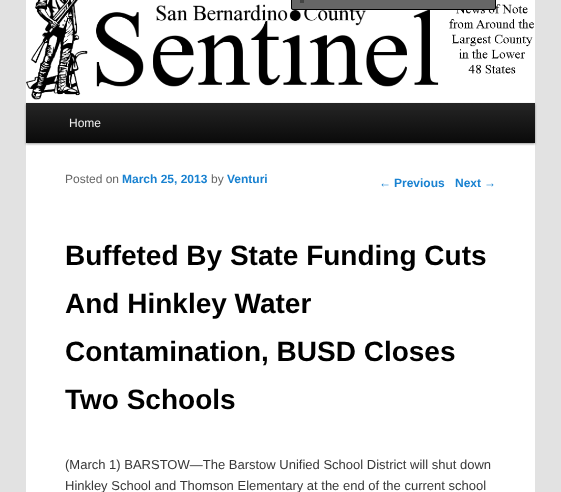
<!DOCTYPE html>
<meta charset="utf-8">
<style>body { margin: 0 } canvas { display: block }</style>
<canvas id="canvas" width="561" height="492"></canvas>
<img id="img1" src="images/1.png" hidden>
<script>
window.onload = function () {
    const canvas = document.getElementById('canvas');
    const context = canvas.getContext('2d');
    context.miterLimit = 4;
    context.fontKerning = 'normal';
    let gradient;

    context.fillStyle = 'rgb(226, 226, 226)';
    context.fillRect(0, 0, 561, 492);
    context.fillStyle = 'rgb(255, 255, 255)';
    context.fillRect(26, 0, 509, 492);
    context.drawImage(document.getElementById('img1'), 26, 0, 508, 100);
    context.fillStyle = 'rgb(102, 102, 102)';
    context.beginPath();
    context.roundRect(291, -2, 205, 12, 2);
    context.fill();
    context.fillStyle = 'rgb(67, 68, 67)';
    context.fillRect(300, 0, 4, 3);
    context.beginPath();
    context.roundRect(291.5, -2.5, 204, 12, 1.5);
    context.strokeStyle = 'rgb(0, 0, 0)';
    context.stroke();
    context.fillStyle = 'rgba(0, 0, 0, 0.4)';
    context.filter = 'blur(1px)';
    context.beginPath();
    context.rect(26, 104, 509, 40);
    context.fill();
    context.filter = 'none';
    gradient = context.createLinearGradient(281, 103, 281, 143);
    gradient.addColorStop(0, 'rgb(37, 37, 37)');
    gradient.addColorStop(1, 'rgb(10, 10, 10)');
    context.fillStyle = gradient;
    context.fillRect(26, 103, 509, 40);
    context.font = '12px Liberation Sans';
    context.fillStyle = 'rgb(238, 238, 238)';
    context.fillText('Home', 69, 127);
    context.fillStyle = 'rgb(102, 102, 102)';
    context.fillText('Posted on', 65, 183);
    context.font = 'bold 12px Liberation Sans';
    context.fillStyle = 'rgb(25, 130, 209)';
    context.fillText('March 25, 2013', 122, 183);
    context.font = '12px Liberation Sans';
    context.fillStyle = 'rgb(102, 102, 102)';
    context.fillText('by', 211, 183);
    context.font = 'bold 12px Liberation Sans';
    context.fillStyle = 'rgb(25, 130, 209)';
    context.fillText('Venturi', 227, 183);
    context.font = 'bold 28px Liberation Sans';
    context.fillStyle = 'rgb(0, 0, 0)';
    context.fillText('Buffeted By State Funding Cuts', 65, 265);
    context.fillText('And Hinkley Water', 65, 313);
    context.fillText('Contamination, BUSD Closes', 65, 361);
    context.fillText('Two Schools', 65, 409);
    context.font = '13px Liberation Sans';
    context.fillStyle = 'rgb(55, 55, 55)';
    context.fillText('(March 1) BARSTOW—The Barstow Unified School District will shut down', 65, 469);
    context.fillText('Hinkley School and Thomson Elementary at the end of the current school', 65, 490);
    context.font = '12px Liberation Sans';
    context.fillStyle = 'rgb(25, 130, 209)';
    context.fillText('←', 379, 187);
    context.font = 'bold 12px Liberation Sans';
    context.fillText('Previous', 394, 187);
    context.fillText('Next', 455, 187);
    context.font = '12px Liberation Sans';
    context.fillText('→', 484, 187);
};
</script>
